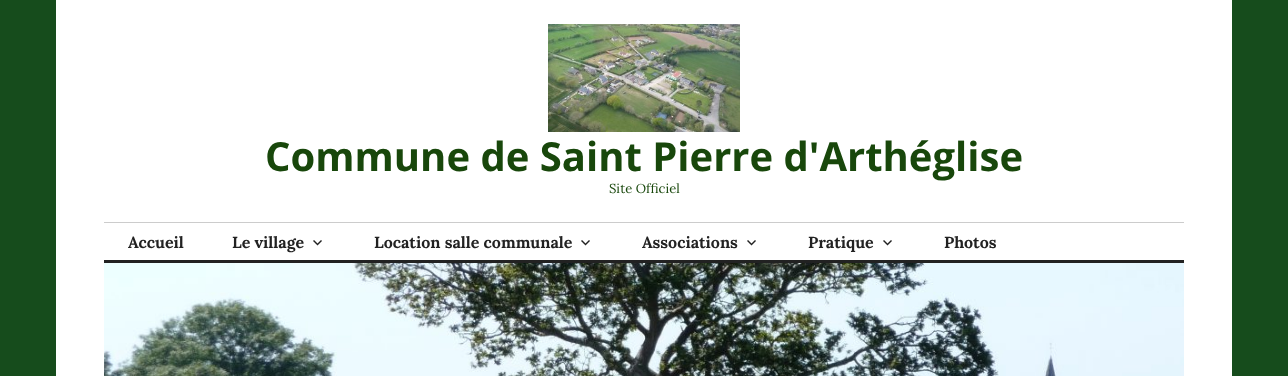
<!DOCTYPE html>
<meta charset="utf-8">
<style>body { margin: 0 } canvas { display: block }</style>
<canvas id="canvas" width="1288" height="376"></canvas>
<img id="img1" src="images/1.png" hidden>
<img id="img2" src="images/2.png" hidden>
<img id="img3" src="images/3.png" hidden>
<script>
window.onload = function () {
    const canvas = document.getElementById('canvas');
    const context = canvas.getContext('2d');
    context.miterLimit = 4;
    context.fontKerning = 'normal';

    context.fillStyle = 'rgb(22, 76, 28)';
    context.fillRect(0, 0, 1288, 376);
    context.fillStyle = 'rgb(255, 255, 255)';
    context.fillRect(56, 0, 1176, 376);
    context.drawImage(document.getElementById('img1'), 548, 24, 192, 108);
    context.fillStyle = 'rgb(204, 204, 204)';
    context.fillRect(104, 222, 1080, 1);
    context.fillStyle = 'rgb(34, 34, 34)';
    context.fillRect(104, 260, 1080, 3);
    context.drawImage(document.getElementById('img2'), 313, 240, 9, 6);
    context.drawImage(document.getElementById('img2'), 581, 240, 9, 6);
    context.drawImage(document.getElementById('img2'), 747, 240, 9, 6);
    context.drawImage(document.getElementById('img2'), 883, 240, 9, 6);
    context.drawImage(document.getElementById('img3'), 104, 263, 1080, 113);
    context.font = 'bold 40px Open Sans';
    context.fillStyle = 'rgb(24, 71, 11)';
    context.fillText('Commune de Saint Pierre d\'Arthéglise', 265, 171);
    context.font = '13px Lora';
    context.fillText('Site Officiel', 609, 193);
    context.font = 'bold 16px Lora';
    context.fillStyle = 'rgb(34, 34, 34)';
    context.fillText('Accueil', 128, 248);
    context.fillText('Le village', 232, 248);
    context.fillText('Location salle communale', 374, 248);
    context.fillText('Associations', 642, 248);
    context.fillText('Pratique', 808, 248);
    context.fillText('Photos', 944, 248);
};
</script>
